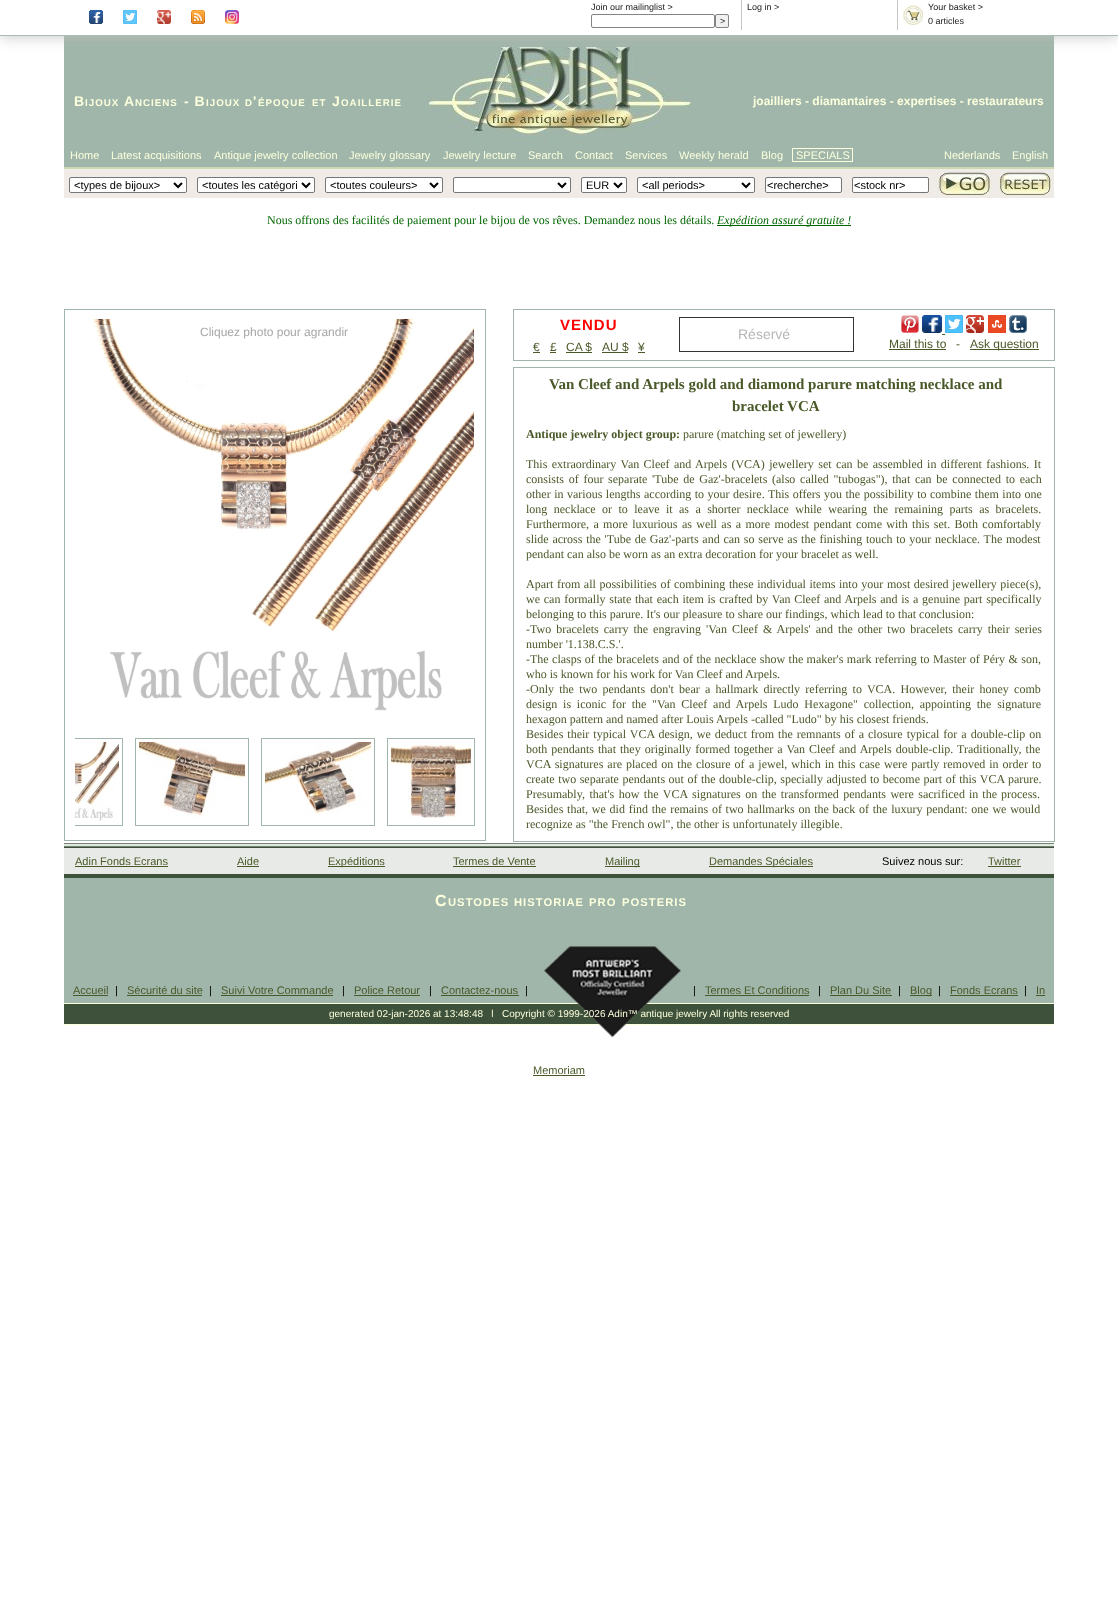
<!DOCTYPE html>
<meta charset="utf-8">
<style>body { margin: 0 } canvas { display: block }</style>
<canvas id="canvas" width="1118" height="1607"></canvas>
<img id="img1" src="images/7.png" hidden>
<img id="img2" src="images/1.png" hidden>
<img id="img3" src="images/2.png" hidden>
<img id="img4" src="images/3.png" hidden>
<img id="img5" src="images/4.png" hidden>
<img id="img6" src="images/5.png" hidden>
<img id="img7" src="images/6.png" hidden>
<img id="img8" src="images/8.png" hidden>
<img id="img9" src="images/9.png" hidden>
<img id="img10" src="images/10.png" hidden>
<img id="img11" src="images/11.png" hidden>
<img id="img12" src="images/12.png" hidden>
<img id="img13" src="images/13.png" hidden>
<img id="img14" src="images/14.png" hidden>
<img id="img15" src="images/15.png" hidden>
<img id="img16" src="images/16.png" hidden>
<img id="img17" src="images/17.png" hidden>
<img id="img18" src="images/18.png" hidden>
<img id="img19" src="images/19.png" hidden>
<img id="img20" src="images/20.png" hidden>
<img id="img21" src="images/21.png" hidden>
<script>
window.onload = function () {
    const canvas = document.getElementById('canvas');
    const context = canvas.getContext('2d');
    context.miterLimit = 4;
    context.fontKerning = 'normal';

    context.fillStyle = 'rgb(255, 255, 255)';
    context.fillRect(0, 0, 1118, 1607);
    context.fillStyle = 'rgb(160, 182, 170)';
    context.fillRect(64, 36, 990, 131);
    context.drawImage(document.getElementById('img1'), 425, 45, 267, 98);
    context.save();
    context.beginPath();
    context.rect(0, 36, 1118, 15);
    context.clip();
    context.fillStyle = 'rgba(187, 187, 187, 0.9)';
    context.filter = 'blur(7.5px)';
    context.beginPath();
    context.rect(0, 0, 1118, 36);
    context.fill();
    context.filter = 'none';
    context.restore();
    context.fillStyle = 'rgb(170, 189, 179)';
    context.fillRect(0, 35, 1118, 1);
    context.drawImage(document.getElementById('img2'), 89, 10, 14, 14);
    context.drawImage(document.getElementById('img3'), 123, 10, 14, 14);
    context.drawImage(document.getElementById('img4'), 157, 10, 14, 14);
    context.drawImage(document.getElementById('img5'), 191, 10, 14, 14);
    context.drawImage(document.getElementById('img6'), 225, 10, 14, 14);
    context.fillStyle = 'rgb(198, 198, 198)';
    context.fillRect(741, 0, 1, 30);
    context.beginPath();
    context.roundRect(591.5, 14.5, 123, 13, 1.5);
    context.strokeStyle = 'rgb(132, 132, 132)';
    context.stroke();
    context.fillStyle = 'rgb(241, 241, 241)';
    context.beginPath();
    context.roundRect(715.5, 14.5, 13, 13, 1.5);
    context.fill();
    context.stroke();
    context.fillStyle = 'rgb(198, 198, 198)';
    context.fillRect(897, 0, 1, 30);
    context.drawImage(document.getElementById('img7'), 903, 5, 20, 20);
    context.fillStyle = 'rgb(204, 216, 178)';
    context.fillRect(64, 167, 990, 2);
    context.strokeStyle = 'rgb(251, 255, 220)';
    context.strokeRect(792.5, 148.5, 60, 13);
    context.fillStyle = 'rgb(240, 235, 231)';
    context.fillRect(64, 169, 990, 29);
    context.fillStyle = 'rgb(255, 255, 255)';
    context.beginPath();
    context.roundRect(69.5, 177.5, 117, 15, 1.5);
    context.fill();
    context.strokeStyle = 'rgb(118, 118, 118)';
    context.stroke();
    context.beginPath();
    context.moveTo(174, 183);
    context.lineTo(178, 187);
    context.lineTo(182, 183);
    context.strokeStyle = 'rgb(0, 0, 0)';
    context.lineWidth = 2;
    context.stroke();
    context.beginPath();
    context.roundRect(197.5, 177.5, 117, 15, 1.5);
    context.fill();
    context.strokeStyle = 'rgb(118, 118, 118)';
    context.lineWidth = 1;
    context.stroke();
    context.beginPath();
    context.moveTo(302, 183);
    context.lineTo(306, 187);
    context.lineTo(310, 183);
    context.strokeStyle = 'rgb(0, 0, 0)';
    context.lineWidth = 2;
    context.stroke();
    context.beginPath();
    context.roundRect(325.5, 177.5, 117, 15, 1.5);
    context.fill();
    context.strokeStyle = 'rgb(118, 118, 118)';
    context.lineWidth = 1;
    context.stroke();
    context.beginPath();
    context.moveTo(430, 183);
    context.lineTo(434, 187);
    context.lineTo(438, 183);
    context.strokeStyle = 'rgb(0, 0, 0)';
    context.lineWidth = 2;
    context.stroke();
    context.beginPath();
    context.roundRect(453.5, 177.5, 117, 15, 1.5);
    context.fill();
    context.strokeStyle = 'rgb(118, 118, 118)';
    context.lineWidth = 1;
    context.stroke();
    context.beginPath();
    context.moveTo(558, 183);
    context.lineTo(562, 187);
    context.lineTo(566, 183);
    context.strokeStyle = 'rgb(0, 0, 0)';
    context.lineWidth = 2;
    context.stroke();
    context.beginPath();
    context.roundRect(581.5, 177.5, 45, 15, 1.5);
    context.fill();
    context.strokeStyle = 'rgb(118, 118, 118)';
    context.lineWidth = 1;
    context.stroke();
    context.beginPath();
    context.moveTo(614, 183);
    context.lineTo(618, 187);
    context.lineTo(622, 183);
    context.strokeStyle = 'rgb(0, 0, 0)';
    context.lineWidth = 2;
    context.stroke();
    context.beginPath();
    context.roundRect(637.5, 177.5, 117, 15, 1.5);
    context.fill();
    context.strokeStyle = 'rgb(118, 118, 118)';
    context.lineWidth = 1;
    context.stroke();
    context.beginPath();
    context.moveTo(742, 183);
    context.lineTo(746, 187);
    context.lineTo(750, 183);
    context.strokeStyle = 'rgb(0, 0, 0)';
    context.lineWidth = 2;
    context.stroke();
    context.beginPath();
    context.roundRect(765.5, 177.5, 76, 15, 1.5);
    context.fill();
    context.strokeStyle = 'rgb(118, 118, 118)';
    context.lineWidth = 1;
    context.stroke();
    context.beginPath();
    context.roundRect(852.5, 177.5, 76, 15, 1.5);
    context.fill();
    context.stroke();
    context.drawImage(document.getElementById('img8'), 934, 170, 58, 26);
    context.drawImage(document.getElementById('img9'), 994, 170, 60, 26);
    context.fillStyle = 'rgb(0, 102, 0)';
    context.fillRect(717, 225, 134, 1);
    context.strokeStyle = 'rgb(160, 182, 170)';
    context.strokeRect(64.5, 309.5, 421, 531);
    context.drawImage(document.getElementById('img10'), 93, 319, 381, 392);
    context.fillStyle = 'rgba(255, 255, 255, 0.35)';
    context.fillRect(95, 325, 378, 15);
    context.save();
    context.beginPath();
    context.rect(75, 738, 400, 90);
    context.clip();
    context.strokeRect(35.5, 738.5, 87, 87);
    context.restore();
    context.drawImage(document.getElementById('img11'), 75, 742, 44, 79);
    context.strokeRect(135.5, 738.5, 113, 87);
    context.drawImage(document.getElementById('img12'), 139, 742, 106, 77);
    context.strokeRect(261.5, 738.5, 113, 87);
    context.drawImage(document.getElementById('img13'), 265, 742, 106, 72);
    context.strokeRect(387.5, 738.5, 87, 87);
    context.drawImage(document.getElementById('img14'), 391, 742, 80, 76);
    context.strokeRect(513.5, 309.5, 541, 51);
    context.fillStyle = 'rgb(74, 89, 41)';
    context.fillRect(533, 352, 7, 1);
    context.fillRect(550, 352, 6, 1);
    context.fillRect(566, 352, 26, 1);
    context.fillRect(602, 352, 26, 1);
    context.fillRect(638, 352, 7, 1);
    context.strokeStyle = 'rgb(51, 51, 51)';
    context.strokeRect(679.5, 317.5, 174, 34);
    context.drawImage(document.getElementById('img15'), 901, 315, 18, 18);
    context.drawImage(document.getElementById('img16'), 922, 315, 20, 18);
    context.drawImage(document.getElementById('img17'), 945, 315, 18, 18);
    context.drawImage(document.getElementById('img18'), 966, 315, 18, 18);
    context.drawImage(document.getElementById('img19'), 988, 315, 18, 18);
    context.drawImage(document.getElementById('img20'), 1009, 315, 18, 18);
    context.fillRect(942, 334, 3, 1);
    context.fillRect(889, 349, 57, 1);
    context.fillRect(970, 349, 69, 1);
    context.strokeStyle = 'rgb(160, 182, 170)';
    context.strokeRect(513.5, 367.5, 541, 474);
    context.fillStyle = 'rgb(222, 234, 220)';
    context.fillRect(64, 844, 990, 2);
    context.fillStyle = 'rgb(120, 127, 119)';
    context.fillRect(64, 843, 990, 1);
    context.fillRect(64, 846, 990, 1);
    context.fillStyle = 'rgb(232, 234, 231)';
    context.fillRect(64, 848, 990, 26);
    context.fillStyle = 'rgb(62, 81, 59)';
    context.fillRect(64, 847, 990, 1);
    context.fillRect(64, 874, 990, 4);
    context.fillStyle = 'rgb(74, 89, 41)';
    context.fillRect(75, 866, 93, 1);
    context.fillRect(237, 866, 22, 1);
    context.fillRect(328, 866, 57, 1);
    context.fillRect(453, 866, 83, 1);
    context.fillRect(605, 866, 35, 1);
    context.fillRect(709, 866, 104, 1);
    context.fillRect(988, 866, 33, 1);
    context.fillStyle = 'rgb(160, 182, 170)';
    context.fillRect(64, 878, 990, 125);
    context.fillStyle = 'rgb(74, 89, 41)';
    context.fillRect(73, 995, 35, 1);
    context.fillRect(127, 995, 75, 1);
    context.fillRect(221, 995, 112, 1);
    context.fillRect(354, 995, 66, 1);
    context.fillRect(441, 995, 78, 1);
    context.fillStyle = 'rgb(62, 81, 59)';
    context.fillRect(64, 1004, 990, 20);
    context.fillStyle = 'rgb(251, 255, 220)';
    context.fillRect(64, 1003, 990, 1);
    context.fillRect(64, 1024, 990, 1);
    context.drawImage(document.getElementById('img21'), 544, 946, 137, 91);
    context.fillStyle = 'rgb(74, 89, 41)';
    context.fillRect(705, 995, 104, 1);
    context.fillRect(830, 995, 62, 1);
    context.fillRect(910, 995, 22, 1);
    context.fillRect(950, 995, 68, 1);
    context.fillRect(1036, 995, 9, 1);
    context.fillRect(533, 1075, 52, 1);
    context.font = '9px Liberation Sans';
    context.fillStyle = 'rgb(26, 26, 26)';
    context.fillText('Join our mailinglist >', 591, 10);
    context.fillText('>', 720, 24);
    context.fillText('Log in >', 747, 10);
    context.fillText('Your basket >', 928, 10);
    context.fillText('0 articles', 928, 24);
    context.letterSpacing = '1px';
    context.font = 'bold 14px Liberation Sans';
    context.fillStyle = 'rgb(251, 255, 220)';
    context.fillText('B', 74, 106);
    context.font = 'bold 9.75px Liberation Sans';
    context.fillText('IJOUX', 85, 106);
    context.font = 'bold 14px Liberation Sans';
    context.fillText('A', 124, 106);
    context.font = 'bold 9.75px Liberation Sans';
    context.fillText('NCIENS', 135, 106);
    context.font = 'bold 14px Liberation Sans';
    context.fillText('- B', 184, 106);
    context.font = 'bold 9.75px Liberation Sans';
    context.fillText('IJOUX', 206, 106);
    context.fillText('D', 245, 106);
    context.font = 'bold 14px Liberation Sans';
    context.fillText('\'', 253, 106);
    context.font = 'bold 9.75px Liberation Sans';
    context.fillText('ÉPOQUE', 258, 106);
    context.fillText('ET', 312, 106);
    context.font = 'bold 14px Liberation Sans';
    context.fillText('J', 332, 106);
    context.font = 'bold 9.75px Liberation Sans';
    context.fillText('OAILLERIE', 341, 106);
    context.letterSpacing = '0px';
    context.font = 'bold 12px Liberation Sans';
    context.fillText('joailliers - diamantaires - expertises - restaurateurs', 753, 105);
    context.font = '11px Liberation Sans';
    context.fillText('Home', 70, 159);
    context.fillText('Latest acquisitions', 111, 159);
    context.fillText('Antique jewelry collection', 214, 159);
    context.fillText('Jewelry glossary', 349, 159);
    context.fillText('Jewelry lecture', 443, 159);
    context.fillText('Search', 528, 159);
    context.fillText('Contact', 575, 159);
    context.fillText('Services', 625, 159);
    context.fillText('Weekly herald', 679, 159);
    context.fillText('Blog', 761, 159);
    context.fillText('SPECIALS', 796, 159);
    context.fillText('Nederlands', 944, 159);
    context.fillText('English', 1012, 159);
    context.fillStyle = 'rgb(0, 0, 0)';
    context.fillText('<types de bijoux>', 74, 189);
    context.fillText('<toutes les catégori', 202, 189);
    context.fillText('<toutes couleurs>', 330, 189);
    context.fillText('EUR', 586, 189);
    context.fillText('<all periods>', 642, 189);
    context.fillText('<recherche>', 767, 189);
    context.fillText('<stock nr>', 854, 189);
    context.font = '12px Liberation Serif';
    context.fillStyle = 'rgb(0, 102, 0)';
    context.fillText('Nous offrons des facilités de paiement pour le bijou de vos rêves. Demandez nous les détails.', 267, 224);
    context.font = 'italic 12px Liberation Serif';
    context.fillText('Expédition assuré gratuite !', 717, 224);
    context.font = '12px Liberation Sans';
    context.fillStyle = 'rgb(166, 166, 166)';
    context.fillText('Cliquez photo pour agrandir', 200, 336);
    context.letterSpacing = '1px';
    context.font = 'bold 15px Liberation Sans';
    context.fillStyle = 'rgb(255, 0, 0)';
    context.fillText('VENDU', 560, 330);
    context.letterSpacing = '0px';
    context.font = '12px Liberation Sans';
    context.fillStyle = 'rgb(74, 89, 41)';
    context.fillText('€', 533, 351);
    context.fillText('£', 550, 351);
    context.fillText('CA $', 566, 351);
    context.fillText('AU $', 602, 351);
    context.fillText('¥', 638, 351);
    context.font = '14px Liberation Sans';
    context.fillStyle = 'rgb(183, 183, 183)';
    context.fillText('Réservé', 738, 339);
    context.font = '12px Liberation Sans';
    context.fillStyle = 'rgb(74, 89, 41)';
    context.fillText('Mail this to', 889, 348);
    context.fillText('-', 956, 348);
    context.fillText('Ask question', 970, 348);
    context.font = 'bold 15px Liberation Serif';
    context.fillText('Van Cleef and Arpels gold and diamond parure matching necklace and', 549, 389);
    context.fillText('bracelet VCA', 732, 411);
    context.font = 'bold 12px Liberation Serif';
    context.fillText('Antique jewelry object group:', 526, 438);
    context.font = '12px Liberation Serif';
    context.fillText('parure (matching set of jewellery)', 683, 438);
    context.wordSpacing = '1.4px';
    context.fillText('This extraordinary Van Cleef and Arpels (VCA) jewellery set can be assembled in different fashions. It', 526, 468);
    context.wordSpacing = '1.7px';
    context.fillText('consists of four separate \'Tube de Gaz\'-bracelets (also called "tubogas"), that can be connected to each', 526, 483);
    context.wordSpacing = '0.5px';
    context.fillText('other in various lengths according to your', 526, 498);
    context.fillText('desire. This offers you the possibility to combine them into one', 733, 498);
    context.wordSpacing = '3.4px';
    context.fillText('long necklace or to leave it as a shorter necklace while wearing the remaining parts as bracelets.', 526, 513);
    context.wordSpacing = '1.4px';
    context.fillText('Furthermore, a more luxurious as well as a more modest pendant come with this set. Both comfortably', 526, 528);
    context.wordSpacing = '0.75px';
    context.fillText('slide across the \'Tube de Gaz\'-parts and can so serve as the finishing touch to your necklace. The modest', 526, 543);
    context.wordSpacing = '0px';
    context.fillText('pendant can also be worn as an extra decoration for your bracelet as well.', 526, 558);
    context.wordSpacing = '0.6px';
    context.fillText('Apart from all possibilities of combining these individual items into your most desired jewellery piece(s),', 526, 588);
    context.wordSpacing = '0.75px';
    context.fillText('we can formally state that each item is crafted by Van Cleef and Arpels and is a genuine part specifically', 526, 603);
    context.wordSpacing = '0px';
    context.fillText('belonging to this parure. It\'s our pleasure to share our findings, which lead to that conclusion:', 526, 618);
    context.wordSpacing = '2px';
    context.fillText('-Two bracelets carry the engraving \'Van Cleef & Arpels\' and the other two bracelets carry their series', 526, 633);
    context.wordSpacing = '0px';
    context.fillText('number \'1.138.C.S.\'.', 526, 648);
    context.wordSpacing = '0.4px';
    context.fillText('-The clasps of the bracelets and of the necklace show the maker\'s mark referring to Master of Péry & son,', 526, 663);
    context.wordSpacing = '0px';
    context.fillText('who is known for his work for Van Cleef and Arpels.', 526, 678);
    context.wordSpacing = '2.25px';
    context.fillText('-Only the two pendants don\'t bear a hallmark directly referring to VCA. However, their honey comb', 526, 693);
    context.wordSpacing = '2.75px';
    context.fillText('design is iconic for the "Van Cleef and Arpels Ludo Hexagone" collection, appointing the signature', 526, 708);
    context.wordSpacing = '0px';
    context.fillText('hexagon pattern and named after Louis Arpels -called "Ludo" by his closest friends.', 526, 723);
    context.wordSpacing = '1px';
    context.fillText('Besides their typical VCA design, we deduct from the remnants of a closure typical for a double-clip on', 526, 738);
    context.fillText('both pendants that they originally formed together a Van Cleef and Arpels double-clip. Traditionally, the', 526, 753);
    context.fillText('VCA signatures are placed on the closure of', 526, 768);
    context.fillText('a jewel, which in this case were partly removed in order to', 749, 768);
    context.wordSpacing = '0.5px';
    context.fillText('create two separate pendants out of the double-clip, specially adjusted to become part of this VCA parure.', 526, 783);
    context.wordSpacing = '1.5px';
    context.fillText('Presumably, that\'s how the VCA signatures on the transformed pendants were sacrificed', 526, 798);
    context.wordSpacing = '1px';
    context.fillText('in the process.', 969, 798);
    context.wordSpacing = '0.75px';
    context.fillText('Besides that, we did find the remains of two hallmarks on the back of the luxury pendant: one we would', 526, 813);
    context.wordSpacing = '0px';
    context.fillText('recognize as "the French owl", the other is unfortunately illegible.', 526, 828);
    context.font = '11px Liberation Sans';
    context.fillText('Adin Fonds Ecrans', 75, 865);
    context.fillText('Aide', 237, 865);
    context.fillText('Expéditions', 328, 865);
    context.fillText('Termes de Vente', 453, 865);
    context.fillText('Mailing', 605, 865);
    context.fillText('Demandes Spéciales', 709, 865);
    context.fillStyle = 'rgb(0, 0, 0)';
    context.fillText('Suivez nous sur:', 882, 865);
    context.fillStyle = 'rgb(74, 89, 41)';
    context.fillText('Twitter', 988, 865);
    context.letterSpacing = '1px';
    context.font = 'bold 16px Liberation Sans';
    context.fillStyle = 'rgb(251, 255, 220)';
    context.fillText('C', 435, 906);
    context.font = 'bold 11.25px Liberation Sans';
    context.fillText('USTODES', 448, 906);
    context.fillText('HISTORIAE', 514, 906);
    context.fillText('PRO', 589, 906);
    context.fillText('POSTERIS', 622, 906);
    context.letterSpacing = '0px';
    context.font = '11px Liberation Sans';
    context.fillStyle = 'rgb(74, 89, 41)';
    context.fillText('Accueil', 73, 994);
    context.fillStyle = 'rgb(0, 0, 0)';
    context.fillText('|', 115, 994);
    context.fillStyle = 'rgb(74, 89, 41)';
    context.fillText('Sécurité du site', 127, 994);
    context.fillStyle = 'rgb(0, 0, 0)';
    context.fillText('|', 209, 994);
    context.fillStyle = 'rgb(74, 89, 41)';
    context.fillText('Suivi Votre Commande', 221, 994);
    context.fillStyle = 'rgb(0, 0, 0)';
    context.fillText('|', 342, 994);
    context.fillStyle = 'rgb(74, 89, 41)';
    context.fillText('Police Retour', 354, 994);
    context.fillStyle = 'rgb(0, 0, 0)';
    context.fillText('|', 429, 994);
    context.fillStyle = 'rgb(74, 89, 41)';
    context.fillText('Contactez-nous', 441, 994);
    context.fillStyle = 'rgb(0, 0, 0)';
    context.fillText('|', 525, 994);
    context.fillText('|', 693, 994);
    context.fillStyle = 'rgb(74, 89, 41)';
    context.fillText('Termes Et Conditions', 705, 994);
    context.fillStyle = 'rgb(0, 0, 0)';
    context.fillText('|', 818, 994);
    context.fillStyle = 'rgb(74, 89, 41)';
    context.fillText('Plan Du Site', 830, 994);
    context.fillStyle = 'rgb(0, 0, 0)';
    context.fillText('|', 898, 994);
    context.fillStyle = 'rgb(74, 89, 41)';
    context.fillText('Blog', 910, 994);
    context.fillStyle = 'rgb(0, 0, 0)';
    context.fillText('|', 938, 994);
    context.fillStyle = 'rgb(74, 89, 41)';
    context.fillText('Fonds Ecrans', 950, 994);
    context.fillStyle = 'rgb(0, 0, 0)';
    context.fillText('|', 1024, 994);
    context.fillStyle = 'rgb(74, 89, 41)';
    context.fillText('In', 1036, 994);
    context.fillText('Memoriam', 533, 1074);
    context.font = '10px Liberation Sans';
    context.fillStyle = 'rgb(251, 255, 220)';
    context.fillText('generated 02-jan-2026 at 13:48:48   l   Copyright © 1999-2026 Adin™ antique jewelry All rights reserved', 329, 1017);
};
</script>
